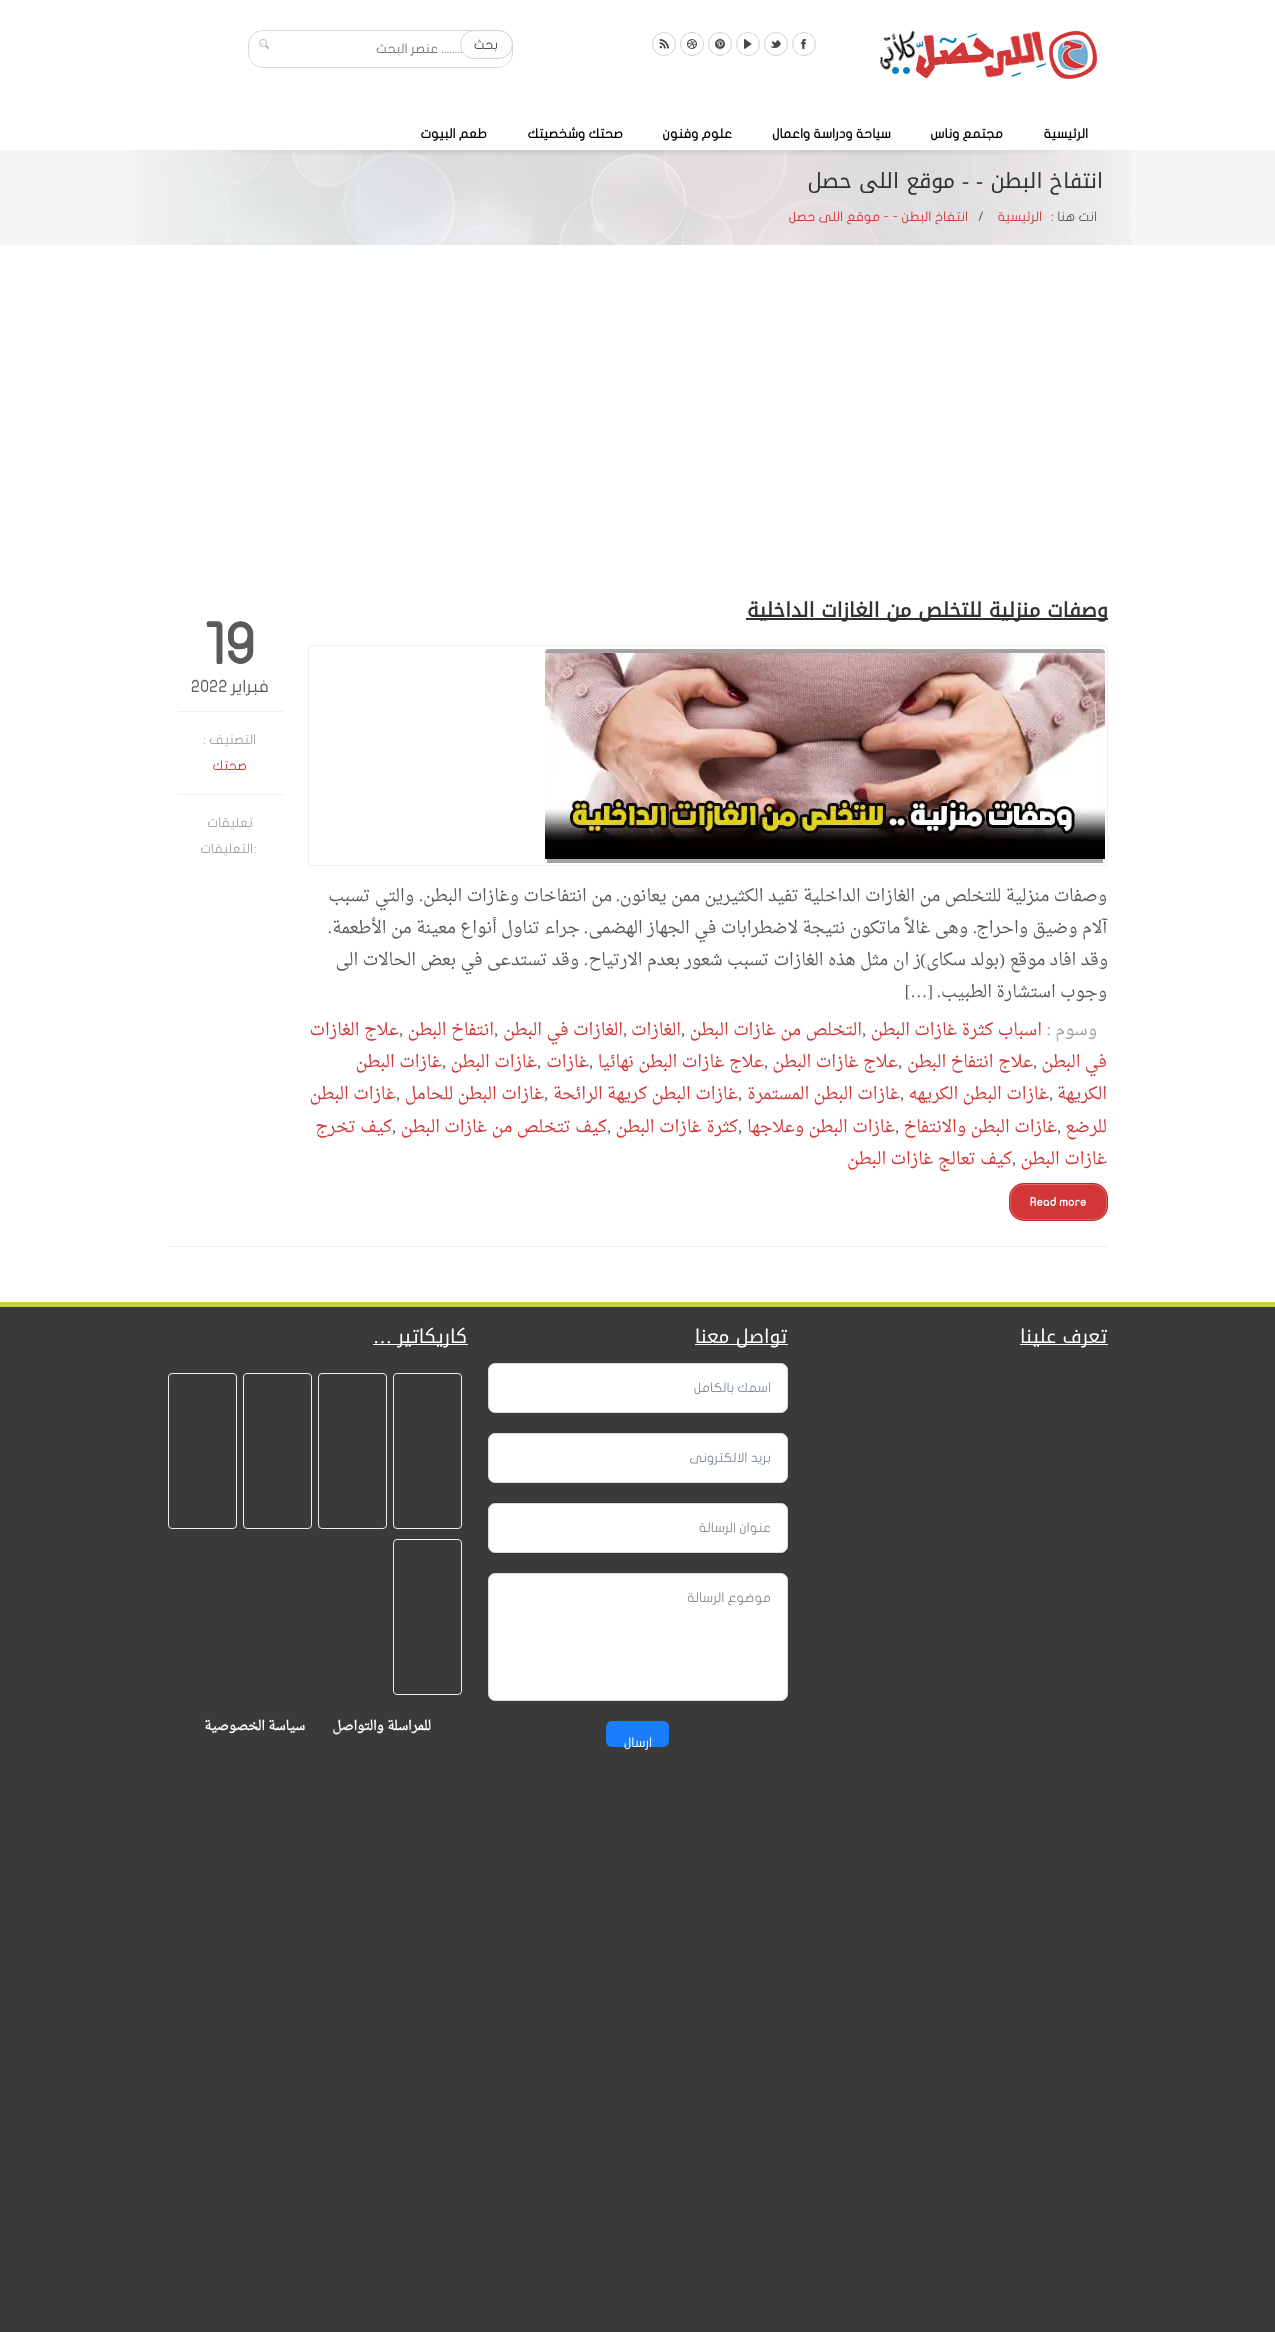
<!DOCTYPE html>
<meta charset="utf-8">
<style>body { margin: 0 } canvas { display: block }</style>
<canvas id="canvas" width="1275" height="2332"></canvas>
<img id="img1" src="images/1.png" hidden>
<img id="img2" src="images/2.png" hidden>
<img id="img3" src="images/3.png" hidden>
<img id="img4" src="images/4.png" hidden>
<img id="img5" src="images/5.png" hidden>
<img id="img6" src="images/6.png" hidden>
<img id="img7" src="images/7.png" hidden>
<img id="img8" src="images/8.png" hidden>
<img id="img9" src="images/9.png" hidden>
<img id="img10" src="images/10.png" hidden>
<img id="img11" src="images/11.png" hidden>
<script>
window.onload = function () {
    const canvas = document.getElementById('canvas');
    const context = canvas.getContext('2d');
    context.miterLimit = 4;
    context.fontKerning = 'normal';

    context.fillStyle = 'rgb(255, 255, 255)';
    context.fillRect(0, 0, 1275, 2332);
    context.fillStyle = 'rgb(245, 245, 245)';
    context.fillRect(0, 150, 1275, 95);
    context.drawImage(document.getElementById('img1'), 135, 150, 996, 95);
    context.drawImage(document.getElementById('img2'), 880, 31, 217, 48);
    context.beginPath();
    context.arc(804, 44, 11.5, 0, 2 * Math.PI);
    context.strokeStyle = 'rgb(211, 211, 211)';
    context.stroke();
    context.drawImage(document.getElementById('img3'), 801, 39, 5, 10);
    context.beginPath();
    context.arc(776, 44, 11.5, 0, 2 * Math.PI);
    context.stroke();
    context.drawImage(document.getElementById('img4'), 770, 40, 11, 8);
    context.beginPath();
    context.arc(748, 44, 11.5, 0, 2 * Math.PI);
    context.stroke();
    context.drawImage(document.getElementById('img5'), 744, 39, 8, 10);
    context.beginPath();
    context.arc(720, 44, 11.5, 0, 2 * Math.PI);
    context.stroke();
    context.drawImage(document.getElementById('img6'), 715, 39, 10, 10);
    context.beginPath();
    context.arc(692, 44, 11.5, 0, 2 * Math.PI);
    context.stroke();
    context.drawImage(document.getElementById('img7'), 687, 39, 10, 10);
    context.beginPath();
    context.arc(664, 44, 11.5, 0, 2 * Math.PI);
    context.stroke();
    context.drawImage(document.getElementById('img8'), 659, 39, 10, 10);
    context.drawImage(document.getElementById('img9'), 259, 39, 10, 10);
    context.beginPath();
    context.roundRect(248.5, 30.5, 264, 37, 14.5);
    context.strokeStyle = 'rgb(216, 216, 216)';
    context.stroke();
    context.drawImage(document.getElementById('img10'), 231, 150, 828, 5);
    context.fillStyle = 'rgb(49, 49, 49)';
    context.fillRect(746, 618, 362, 2);
    context.beginPath();
    context.roundRect(308.5, 645.5, 799, 220, 3.5);
    context.strokeStyle = 'rgb(238, 238, 238)';
    context.stroke();
    context.fillStyle = 'rgb(164, 163, 163)';
    context.fillRect(547, 859, 556, 4);
    context.drawImage(document.getElementById('img11'), 545, 648, 560, 211);
    context.fillStyle = 'rgb(211, 54, 54)';
    context.beginPath();
    context.roundRect(1009, 1183, 99, 38, 15);
    context.fill();
    context.beginPath();
    context.roundRect(1010.5, 1184.5, 96, 35, 13.5);
    context.strokeStyle = 'rgb(222, 104, 104)';
    context.stroke();
    context.beginPath();
    context.roundRect(1009.5, 1183.5, 98, 37, 14.5);
    context.strokeStyle = 'rgba(0, 0, 0, 0.15)';
    context.stroke();
    context.fillStyle = 'rgb(238, 238, 238)';
    context.fillRect(178, 711, 105, 1);
    context.fillRect(178, 794, 105, 1);
    context.fillRect(168, 1246, 940, 1);
    context.fillStyle = 'rgb(58, 58, 58)';
    context.fillRect(0, 1307, 1275, 1025);
    context.fillStyle = 'rgb(199, 211, 54)';
    context.fillRect(0, 1302, 1275, 5);
    context.fillStyle = 'rgb(54, 54, 54)';
    context.fillRect(421, 1307, 455, 1);
    context.fillStyle = 'rgb(255, 255, 255)';
    context.fillRect(1020, 1344, 88, 1);
    context.fillRect(695, 1344, 93, 1);
    context.beginPath();
    context.roundRect(488.5, 1363.5, 299, 49, 6.5);
    context.fill();
    context.strokeStyle = 'rgb(218, 219, 221)';
    context.stroke();
    context.beginPath();
    context.roundRect(488.5, 1433.5, 299, 49, 6.5);
    context.fill();
    context.stroke();
    context.beginPath();
    context.roundRect(488.5, 1503.5, 299, 49, 6.5);
    context.fill();
    context.stroke();
    context.beginPath();
    context.roundRect(488.5, 1573.5, 299, 127, 6.5);
    context.fill();
    context.stroke();
    context.fillStyle = 'rgb(26, 126, 251)';
    context.beginPath();
    context.roundRect(606, 1721, 63, 26, 6);
    context.fill();
    context.fillStyle = 'rgb(255, 255, 255)';
    context.fillRect(373, 1344, 95, 1);
    context.beginPath();
    context.roundRect(393.5, 1373.5, 68, 155, 3.5);
    context.strokeStyle = 'rgb(238, 238, 238)';
    context.stroke();
    context.beginPath();
    context.roundRect(318.5, 1373.5, 68, 155, 3.5);
    context.stroke();
    context.beginPath();
    context.roundRect(243.5, 1373.5, 68, 155, 3.5);
    context.stroke();
    context.beginPath();
    context.roundRect(168.5, 1373.5, 68, 155, 3.5);
    context.stroke();
    context.beginPath();
    context.roundRect(393.5, 1539.5, 68, 155, 3.5);
    context.stroke();
    context.direction = 'rtl';
    context.font = '13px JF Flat';
    context.fillStyle = 'rgb(117, 117, 117)';
    context.fillText('................. عنصر البحث', 486, 53);
    context.fillStyle = 'rgb(253, 253, 253)';
    context.beginPath();
    context.roundRect(460.5, 30.5, 52, 28, 14);
    context.fill();
    context.strokeStyle = 'rgb(211, 211, 211)';
    context.stroke();
    context.fillStyle = 'rgb(78, 78, 78)';
    context.fillText('بحث', 498, 49);
    context.font = 'bold 13px JF Flat';
    context.fillStyle = 'rgb(0, 0, 0)';
    context.fillText('الرئيسية', 1088, 138);
    context.fillText('مجتمع وناس', 1003, 138);
    context.fillText('سياحة ودراسة واعمال', 891, 138);
    context.fillText('علوم وفنون', 732, 138);
    context.fillText('صحتك وشخصيتك', 623, 138);
    context.fillText('طعم البيوت', 487, 138);
    context.font = '21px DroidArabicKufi';
    context.fillStyle = 'rgb(49, 49, 49)';
    context.fillText('انتفاخ البطن', 1103, 188);
    context.font = '21px Liberation Serif';
    context.fillText('-', 983, 188);
    context.fillText('-', 969, 188);
    context.font = '21px DroidArabicKufi';
    context.fillText('موقع اللى حصل', 955, 188);
    context.font = '13px JF Flat';
    context.fillStyle = 'rgb(89, 90, 92)';
    context.fillText('انت هنا :', 1097, 221);
    context.fillStyle = 'rgb(211, 54, 54)';
    context.fillText('الرئيسية', 1042, 221);
    context.direction = 'ltr';
    context.fillStyle = 'rgb(89, 90, 92)';
    context.fillText('/', 978, 221);
    context.direction = 'rtl';
    context.fillStyle = 'rgb(211, 54, 54)';
    context.fillText('انتفاخ البطن - - موقع اللى حصل', 968, 221);
    context.font = 'bold 20px DroidArabicKufi';
    context.fillStyle = 'rgb(49, 49, 49)';
    context.fillText('وصفات منزلية للتخلص من الغازات الداخلية', 1108, 617);
    context.font = '17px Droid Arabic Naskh';
    context.fillStyle = 'rgb(89, 90, 92)';
    context.fillText('وصفات منزلية للتخلص من الغازات الداخلية تفيد الكثيرين ممن يعانون', 1107, 901);
    context.font = '17px Liberation Serif';
    context.fillText('.', 620, 901);
    context.font = '17px Droid Arabic Naskh';
    context.fillText('من انتفاخات وغازات البطن', 612, 901);
    context.font = '17px Liberation Serif';
    context.fillText('.', 423, 901);
    context.font = '17px Droid Arabic Naskh';
    context.fillText('والتي تسبب', 414, 901);
    context.fillText('آلام وضيق واحراج', 1107, 933);
    context.font = '17px Liberation Serif';
    context.fillText('.', 977, 933);
    context.font = '17px Droid Arabic Naskh';
    context.fillText('وهى غالاً ماتكون نتيجة لاضطرابات في الجهاز الهضمى', 968, 933);
    context.font = '17px Liberation Serif';
    context.fillText('.', 588, 933);
    context.font = '17px Droid Arabic Naskh';
    context.fillText('جراء تناول أنواع معينة من الأطعمة', 580, 933);
    context.font = '17px Liberation Serif';
    context.fillText('.', 332, 933);
    context.font = '17px Droid Arabic Naskh';
    context.fillText('وقد افاد موقع', 1108, 965);
    context.font = '17px Liberation Serif';
    context.fillText('(', 1005, 965);
    context.font = '17px Droid Arabic Naskh';
    context.fillText('بولد سكاى', 999, 965);
    context.font = '17px Liberation Serif';
    context.fillText(')', 926, 965);
    context.font = '17px Droid Arabic Naskh';
    context.fillText('ز ان مثل هذه الغازات تسبب شعور بعدم الارتياح', 921, 965);
    context.font = '17px Liberation Serif';
    context.fillText('.', 588, 965);
    context.font = '17px Droid Arabic Naskh';
    context.fillText('وقد تستدعى في بعض الحالات الى', 579, 965);
    context.fillText('وجوب استشارة الطبيب', 1107, 997);
    context.font = '17px Liberation Serif';
    context.fillText('.', 941, 997);
    context.fillText('[…]', 933, 997);
    context.font = '17px Droid Arabic Naskh';
    context.fillStyle = 'rgb(163, 163, 163)';
    context.fillText('وسوم', 1097, 1035);
    context.font = '17px Liberation Serif';
    context.fillText(':', 1051, 1035);
    context.font = '17px Droid Arabic Naskh';
    context.fillStyle = 'rgb(211, 54, 54)';
    context.fillText('اسباب كثرة غازات البطن', 1042, 1035);
    context.direction = 'ltr';
    context.font = '17px Liberation Serif';
    context.fillStyle = 'rgb(89, 90, 92)';
    context.fillText(',', 862, 1035);
    context.direction = 'rtl';
    context.font = '17px Droid Arabic Naskh';
    context.fillStyle = 'rgb(211, 54, 54)';
    context.fillText('التخلص من غازات البطن', 862, 1035);
    context.direction = 'ltr';
    context.font = '17px Liberation Serif';
    context.fillStyle = 'rgb(89, 90, 92)';
    context.fillText(',', 681, 1035);
    context.direction = 'rtl';
    context.font = '17px Droid Arabic Naskh';
    context.fillStyle = 'rgb(211, 54, 54)';
    context.fillText('الغازات', 681, 1035);
    context.direction = 'ltr';
    context.font = '17px Liberation Serif';
    context.fillStyle = 'rgb(89, 90, 92)';
    context.fillText(',', 623, 1035);
    context.direction = 'rtl';
    context.font = '17px Droid Arabic Naskh';
    context.fillStyle = 'rgb(211, 54, 54)';
    context.fillText('الغازات في البطن', 623, 1035);
    context.direction = 'ltr';
    context.font = '17px Liberation Serif';
    context.fillStyle = 'rgb(89, 90, 92)';
    context.fillText(',', 494, 1035);
    context.direction = 'rtl';
    context.font = '17px Droid Arabic Naskh';
    context.fillStyle = 'rgb(211, 54, 54)';
    context.fillText('انتفاخ البطن', 494, 1035);
    context.direction = 'ltr';
    context.font = '17px Liberation Serif';
    context.fillStyle = 'rgb(89, 90, 92)';
    context.fillText(',', 399, 1035);
    context.direction = 'rtl';
    context.font = '17px Droid Arabic Naskh';
    context.fillStyle = 'rgb(211, 54, 54)';
    context.fillText('علاج الغازات', 399, 1035);
    context.fillText('في البطن', 1107, 1067);
    context.direction = 'ltr';
    context.font = '17px Liberation Serif';
    context.fillStyle = 'rgb(89, 90, 92)';
    context.fillText(',', 1033, 1067);
    context.direction = 'rtl';
    context.font = '17px Droid Arabic Naskh';
    context.fillStyle = 'rgb(211, 54, 54)';
    context.fillText('علاج انتفاخ البطن', 1033, 1067);
    context.direction = 'ltr';
    context.font = '17px Liberation Serif';
    context.fillStyle = 'rgb(89, 90, 92)';
    context.fillText(',', 898, 1067);
    context.direction = 'rtl';
    context.font = '17px Droid Arabic Naskh';
    context.fillStyle = 'rgb(211, 54, 54)';
    context.fillText('علاج غازات البطن', 898, 1067);
    context.direction = 'ltr';
    context.font = '17px Liberation Serif';
    context.fillStyle = 'rgb(89, 90, 92)';
    context.fillText(',', 764, 1067);
    context.direction = 'rtl';
    context.font = '17px Droid Arabic Naskh';
    context.fillStyle = 'rgb(211, 54, 54)';
    context.fillText('علاج غازات البطن نهائيا', 764, 1067);
    context.direction = 'ltr';
    context.font = '17px Liberation Serif';
    context.fillStyle = 'rgb(89, 90, 92)';
    context.fillText(',', 589, 1067);
    context.direction = 'rtl';
    context.font = '17px Droid Arabic Naskh';
    context.fillStyle = 'rgb(211, 54, 54)';
    context.fillText('غازات', 589, 1067);
    context.direction = 'ltr';
    context.font = '17px Liberation Serif';
    context.fillStyle = 'rgb(89, 90, 92)';
    context.fillText(',', 537, 1067);
    context.direction = 'rtl';
    context.font = '17px Droid Arabic Naskh';
    context.fillStyle = 'rgb(211, 54, 54)';
    context.fillText('غازات البطن', 537, 1067);
    context.direction = 'ltr';
    context.font = '17px Liberation Serif';
    context.fillStyle = 'rgb(89, 90, 92)';
    context.fillText(',', 442, 1067);
    context.direction = 'rtl';
    context.font = '17px Droid Arabic Naskh';
    context.fillStyle = 'rgb(211, 54, 54)';
    context.fillText('غازات البطن', 442, 1067);
    context.fillText('الكريهة', 1107, 1099);
    context.direction = 'ltr';
    context.font = '17px Liberation Serif';
    context.fillStyle = 'rgb(89, 90, 92)';
    context.fillText(',', 1049, 1099);
    context.direction = 'rtl';
    context.font = '17px Droid Arabic Naskh';
    context.fillStyle = 'rgb(211, 54, 54)';
    context.fillText('غازات البطن الكريهه', 1049, 1099);
    context.direction = 'ltr';
    context.font = '17px Liberation Serif';
    context.fillStyle = 'rgb(89, 90, 92)';
    context.fillText(',', 900, 1099);
    context.direction = 'rtl';
    context.font = '17px Droid Arabic Naskh';
    context.fillStyle = 'rgb(211, 54, 54)';
    context.fillText('غازات البطن المستمرة', 900, 1099);
    context.direction = 'ltr';
    context.font = '17px Liberation Serif';
    context.fillStyle = 'rgb(89, 90, 92)';
    context.fillText(',', 738, 1099);
    context.direction = 'rtl';
    context.font = '17px Droid Arabic Naskh';
    context.fillStyle = 'rgb(211, 54, 54)';
    context.fillText('غازات البطن كريهة الرائحة', 738, 1099);
    context.direction = 'ltr';
    context.font = '17px Liberation Serif';
    context.fillStyle = 'rgb(89, 90, 92)';
    context.fillText(',', 544, 1099);
    context.direction = 'rtl';
    context.font = '17px Droid Arabic Naskh';
    context.fillStyle = 'rgb(211, 54, 54)';
    context.fillText('غازات البطن للحامل', 544, 1099);
    context.direction = 'ltr';
    context.font = '17px Liberation Serif';
    context.fillStyle = 'rgb(89, 90, 92)';
    context.fillText(',', 396, 1099);
    context.direction = 'rtl';
    context.font = '17px Droid Arabic Naskh';
    context.fillStyle = 'rgb(211, 54, 54)';
    context.fillText('غازات البطن', 396, 1099);
    context.fillText('للرضع', 1107, 1132);
    context.direction = 'ltr';
    context.font = '17px Liberation Serif';
    context.fillStyle = 'rgb(89, 90, 92)';
    context.fillText(',', 1057, 1132);
    context.direction = 'rtl';
    context.font = '17px Droid Arabic Naskh';
    context.fillStyle = 'rgb(211, 54, 54)';
    context.fillText('غازات البطن والانتفاخ', 1057, 1132);
    context.direction = 'ltr';
    context.font = '17px Liberation Serif';
    context.fillStyle = 'rgb(89, 90, 92)';
    context.fillText(',', 895, 1132);
    context.direction = 'rtl';
    context.font = '17px Droid Arabic Naskh';
    context.fillStyle = 'rgb(211, 54, 54)';
    context.fillText('غازات البطن وعلاجها', 895, 1132);
    context.direction = 'ltr';
    context.font = '17px Liberation Serif';
    context.fillStyle = 'rgb(89, 90, 92)';
    context.fillText(',', 738, 1132);
    context.direction = 'rtl';
    context.font = '17px Droid Arabic Naskh';
    context.fillStyle = 'rgb(211, 54, 54)';
    context.fillText('كثرة غازات البطن', 738, 1132);
    context.direction = 'ltr';
    context.font = '17px Liberation Serif';
    context.fillStyle = 'rgb(89, 90, 92)';
    context.fillText(',', 607, 1132);
    context.direction = 'rtl';
    context.font = '17px Droid Arabic Naskh';
    context.fillStyle = 'rgb(211, 54, 54)';
    context.fillText('كيف تتخلص من غازات البطن', 607, 1132);
    context.direction = 'ltr';
    context.font = '17px Liberation Serif';
    context.fillStyle = 'rgb(89, 90, 92)';
    context.fillText(',', 392, 1132);
    context.direction = 'rtl';
    context.font = '17px Droid Arabic Naskh';
    context.fillStyle = 'rgb(211, 54, 54)';
    context.fillText('كيف تخرج', 392, 1132);
    context.fillText('غازات البطن', 1107, 1164);
    context.direction = 'ltr';
    context.font = '17px Liberation Serif';
    context.fillStyle = 'rgb(89, 90, 92)';
    context.fillText(',', 1012, 1164);
    context.direction = 'rtl';
    context.font = '17px Droid Arabic Naskh';
    context.fillStyle = 'rgb(211, 54, 54)';
    context.fillText('كيف تعالج غازات البطن', 1012, 1164);
    context.direction = 'ltr';
    context.font = 'bold 12px JF Flat';
    context.fillStyle = 'rgb(255, 255, 255)';
    context.fillText('Read more', 1030, 1206);
    context.font = 'bold 57px JF Flat';
    context.fillStyle = 'rgb(89, 90, 92)';
    context.fillText('19', 204, 664);
    context.direction = 'rtl';
    context.font = '17px JF Flat';
    context.fillText('فبراير', 269, 692);
    context.direction = 'ltr';
    context.fillText('2022', 191, 692);
    context.direction = 'rtl';
    context.font = '13px JF Flat';
    context.fillStyle = 'rgb(163, 163, 163)';
    context.fillText('التصنيف :', 256, 744);
    context.fillStyle = 'rgb(211, 54, 54)';
    context.fillText('صحتك', 247, 770);
    context.fillStyle = 'rgb(163, 163, 163)';
    context.fillText('تعليقات', 253, 827);
    context.direction = 'ltr';
    context.fillText(':', 254, 853);
    context.direction = 'rtl';
    context.fillText('التعليقات', 253, 853);
    context.font = '19px DroidArabicKufi';
    context.fillStyle = 'rgb(255, 255, 255)';
    context.fillText('تعرف علينا', 1107, 1343);
    context.fillText('تواصل معنا', 787, 1343);
    context.font = '13px JF Flat';
    context.fillStyle = 'rgb(134, 142, 150)';
    context.fillText('اسمك بالكامل', 771, 1392);
    context.fillText('بريد الالكترونى', 771, 1462);
    context.fillText('عنوان الرسالة', 771, 1532);
    context.fillText('موضوع الرسالة', 771, 1602);
    context.fillStyle = 'rgb(255, 255, 255)';
    context.fillText('ارسال', 652, 1747);
    context.font = '19px DroidArabicKufi';
    context.fillText('كاريكاتير', 467, 1343);
    context.font = '19px Liberation Serif';
    context.fillText('…', 392, 1343);
    context.font = 'bold 13px Droid Arabic Naskh';
    context.fillText('للمراسلة والتواصل', 431, 1730);
    context.fillText('سياسة الخصوصية', 305, 1730);
};
</script>
